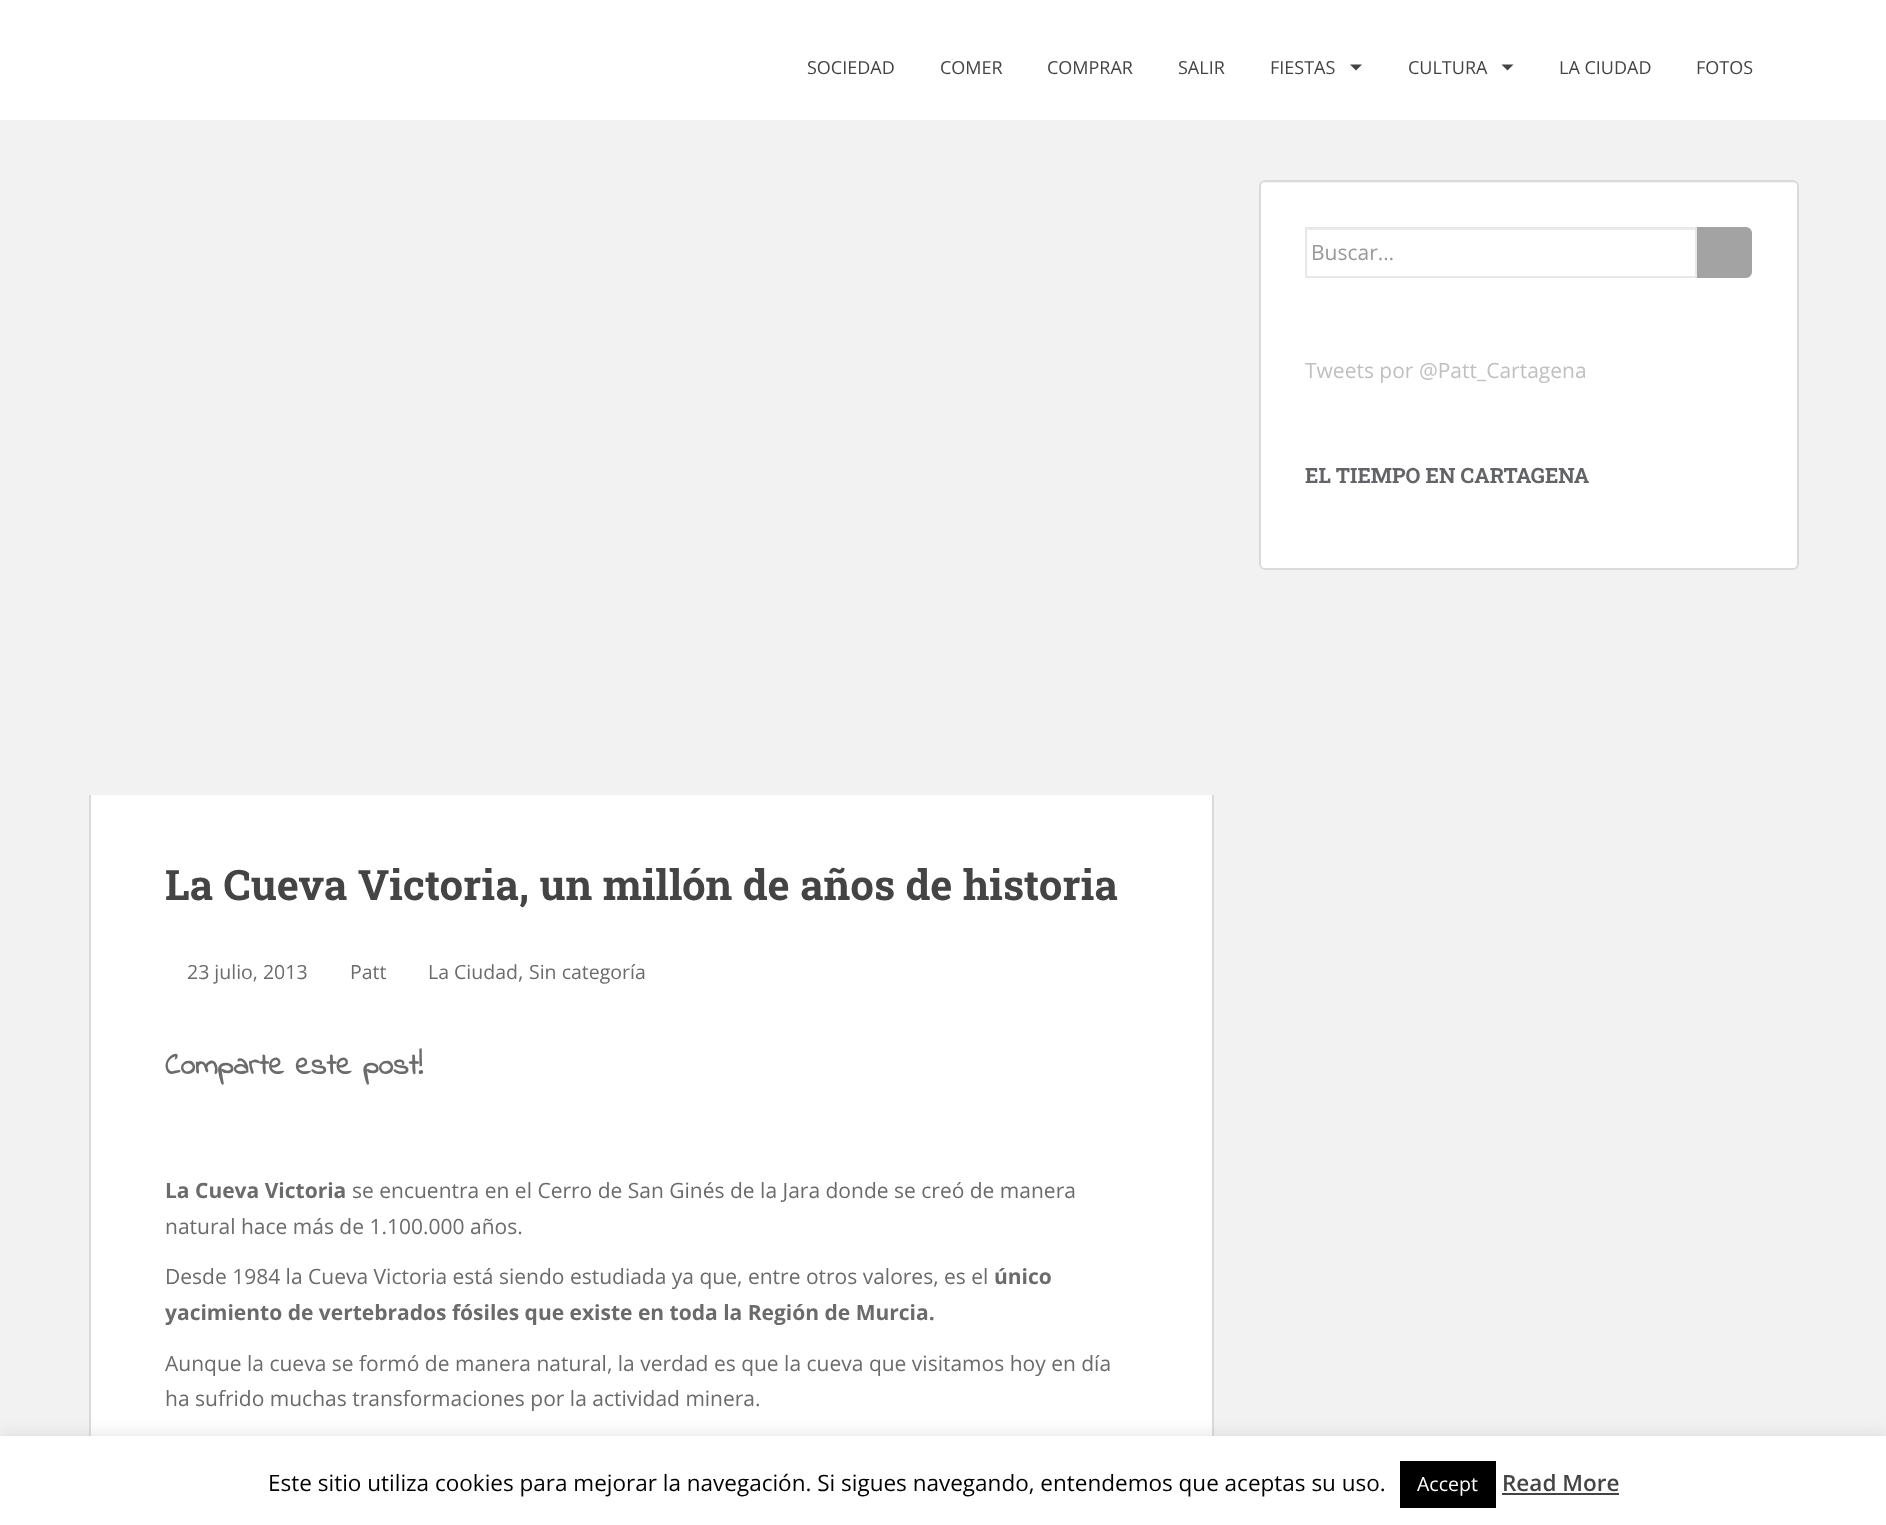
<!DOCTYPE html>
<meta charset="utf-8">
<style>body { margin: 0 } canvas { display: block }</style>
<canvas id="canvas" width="1886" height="1525"></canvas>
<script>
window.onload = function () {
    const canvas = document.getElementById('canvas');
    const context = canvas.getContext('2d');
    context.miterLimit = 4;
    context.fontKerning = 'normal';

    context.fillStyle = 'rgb(242, 242, 242)';
    context.fillRect(0, 0, 1886, 1525);
    context.fillStyle = 'rgb(255, 255, 255)';
    context.fillRect(0, 0, 1886, 120);
    context.fillStyle = 'rgb(68, 68, 68)';
    context.beginPath();
    context.moveTo(1350, 64.5);
    context.lineTo(1362, 64.5);
    context.lineTo(1356, 70.5);
    context.closePath();
    context.fill();
    context.beginPath();
    context.moveTo(1501.5, 64.5);
    context.lineTo(1513.5, 64.5);
    context.lineTo(1507.5, 70.5);
    context.closePath();
    context.fill();
    context.fillStyle = 'rgb(255, 255, 255)';
    context.beginPath();
    context.roundRect(1259, 180, 540, 390, 6);
    context.fill();
    context.fillStyle = 'rgb(242, 242, 242)';
    context.beginPath();
    context.moveTo(1264, 183);
    context.lineTo(1792, 183);
    context.bezierCurveTo(1795, 183, 1797, 185, 1797, 188);
    context.bezierCurveTo(1797, 185, 1795, 182, 1792, 182);
    context.lineTo(1265, 182);
    context.bezierCurveTo(1262, 182, 1260, 185, 1260, 188);
    context.bezierCurveTo(1260, 185, 1262, 183, 1264, 183);
    context.closePath();
    context.fill();
    context.beginPath();
    context.roundRect(1260, 181, 538, 388, 5);
    context.strokeStyle = 'rgb(218, 218, 218)';
    context.lineWidth = 2;
    context.stroke();
    context.fillStyle = 'rgb(236, 236, 236)';
    context.fillRect(1307, 229, 388, 1);
    context.strokeStyle = 'rgb(232, 232, 232)';
    context.strokeRect(1306, 228, 390, 49);
    context.fillStyle = 'rgb(163, 163, 163)';
    context.beginPath();
    context.roundRect(1698, 228, 53, 49, [0, 5, 5, 0]);
    context.fill();
    context.strokeStyle = 'rgb(163, 163, 163)';
    context.stroke();
    context.fillStyle = 'rgb(255, 255, 255)';
    context.fillRect(91, 795, 1121, 641);
    context.fillStyle = 'rgb(218, 218, 218)';
    context.fillRect(1212, 795, 2, 641);
    context.fillRect(89, 795, 2, 641);
    context.fillStyle = 'rgba(172, 171, 171, 0.3)';
    context.filter = 'blur(7.5px)';
    context.beginPath();
    context.rect(0, 1434, 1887, 90);
    context.fill();
    context.filter = 'none';
    context.fillStyle = 'rgb(255, 255, 255)';
    context.fillRect(0, 1436, 1886, 89);
    context.fillStyle = 'rgb(0, 0, 0)';
    context.fillRect(1400, 1461, 96, 47);
    context.fillStyle = 'rgb(68, 68, 68)';
    context.fillRect(1502, 1493, 117, 2);
    context.font = '18px Open Sans';
    context.fillText('SOCIEDAD', 807, 74);
    context.fillText('COMER', 940, 74);
    context.fillText('COMPRAR', 1047, 74);
    context.fillText('SALIR', 1178, 74);
    context.fillText('FIESTAS', 1270, 74);
    context.fillText('CULTURA', 1408, 74);
    context.fillText('LA CIUDAD', 1559, 74);
    context.fillText('FOTOS', 1696, 74);
    context.font = '21px Open Sans';
    context.fillStyle = 'rgb(153, 153, 153)';
    context.fillText('Buscar…', 1311, 260);
    context.fillStyle = 'rgb(193, 192, 192)';
    context.fillText('Tweets por @Patt_Cartagena', 1305, 378);
    context.font = 'bold 21px Roboto Slab';
    context.fillStyle = 'rgb(99, 100, 103)';
    context.fillText('EL TIEMPO EN CARTAGENA', 1305, 483);
    context.font = 'bold 42px Roboto Slab';
    context.fillStyle = 'rgb(68, 68, 68)';
    context.fillText('La Cueva Victoria, un millón de años de historia', 165, 900);
    context.font = '19.5px Open Sans';
    context.fillStyle = 'rgb(107, 107, 107)';
    context.fillText('23 julio, 2013', 187, 979);
    context.fillText('Patt', 350, 979);
    context.fillText('La Ciudad', 428, 979);
    context.font = '21px Open Sans';
    context.fillText(',', 518, 979);
    context.font = '19.5px Open Sans';
    context.fillText('Sin categoría', 529, 979);
    context.font = 'bold 30px Indie Flower';
    context.fillText('Comparte este post!', 165, 1074);
    context.font = 'bold 21px Open Sans';
    context.fillText('La Cueva Victoria', 165, 1198);
    context.font = '21px Open Sans';
    context.fillText('se encuentra en el Cerro de San Ginés de la Jara donde se creó de manera', 352, 1198);
    context.fillText('natural hace más de 1.100.000 años.', 165, 1234);
    context.fillText('Desde 1984 la Cueva Victoria está siendo estudiada ya que, entre otros valores, es el', 165, 1284);
    context.font = 'bold 21px Open Sans';
    context.fillText('único', 994, 1284);
    context.fillText('yacimiento de vertebrados fósiles que existe en toda la Región de Murcia.', 165, 1320);
    context.font = '21px Open Sans';
    context.fillText('Aunque la cueva se formó de manera natural, la verdad es que la cueva que visitamos hoy en día', 165, 1371);
    context.fillText('ha sufrido muchas transformaciones por la actividad minera.', 165, 1406);
    context.font = '22.5px Open Sans';
    context.fillStyle = 'rgb(0, 0, 0)';
    context.fillText('Este sitio utiliza cookies para mejorar la navegación. Si sigues navegando, entendemos que aceptas su uso.', 268, 1491);
    context.font = '19.5px Open Sans';
    context.fillStyle = 'rgb(255, 255, 255)';
    context.fillText('Accept', 1417, 1491);
    context.font = '600 22.5px Open Sans';
    context.fillStyle = 'rgb(68, 68, 68)';
    context.fillText('Read More', 1502, 1491);
};
</script>
